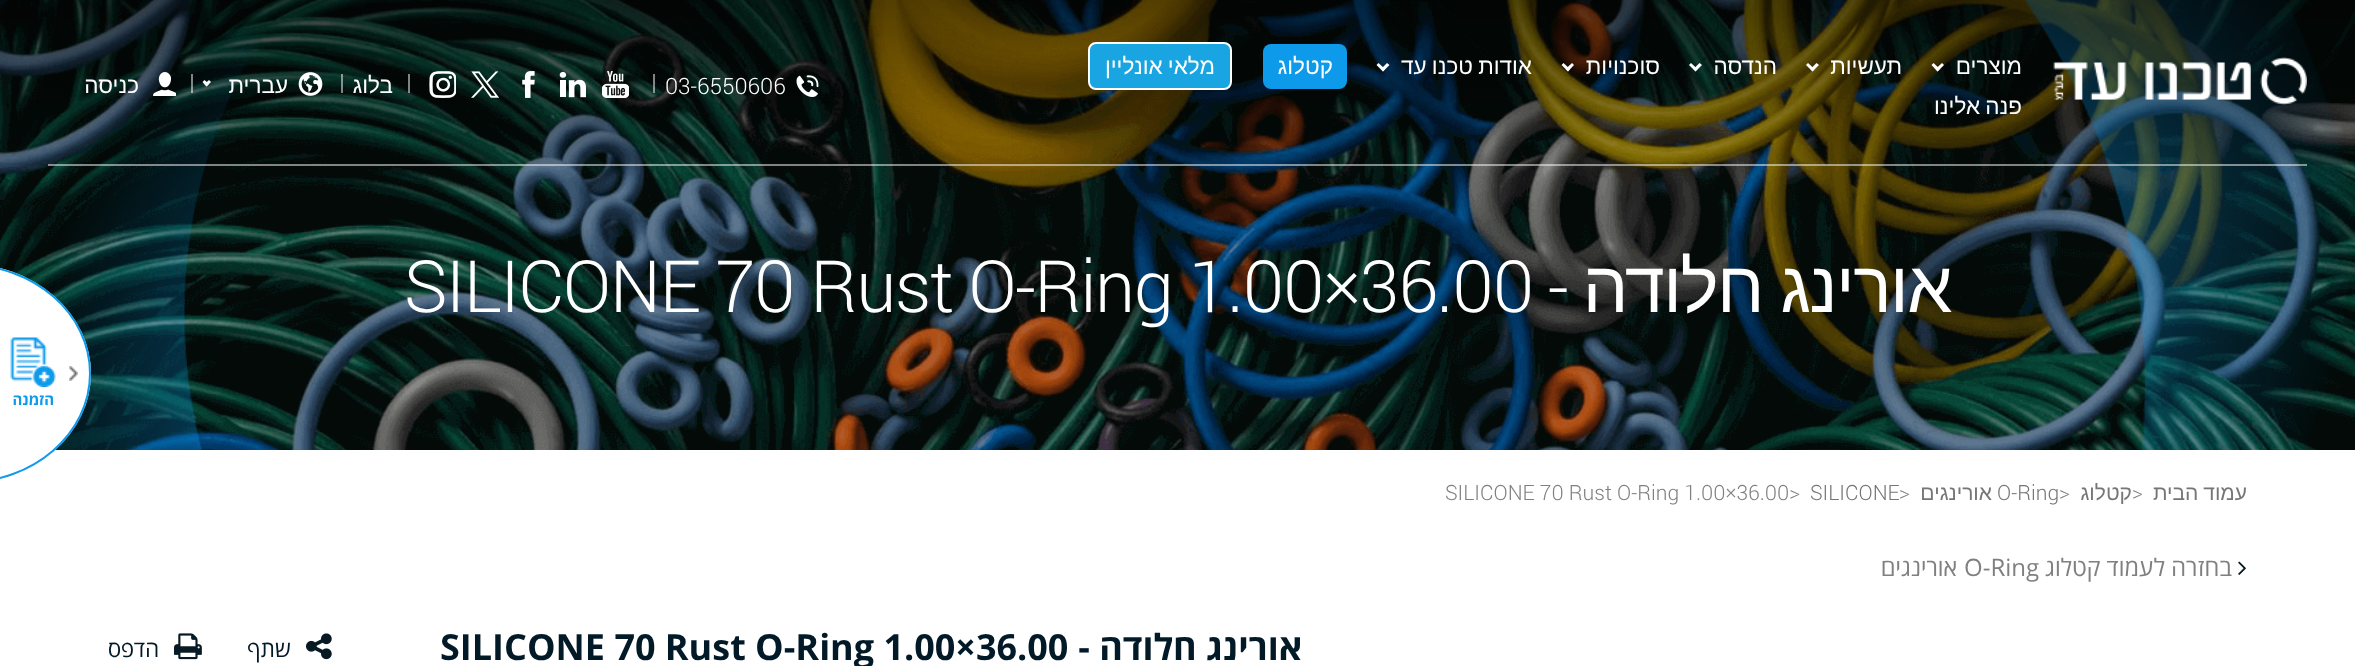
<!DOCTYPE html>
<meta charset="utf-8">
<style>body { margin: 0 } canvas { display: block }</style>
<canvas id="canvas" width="2355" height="666"></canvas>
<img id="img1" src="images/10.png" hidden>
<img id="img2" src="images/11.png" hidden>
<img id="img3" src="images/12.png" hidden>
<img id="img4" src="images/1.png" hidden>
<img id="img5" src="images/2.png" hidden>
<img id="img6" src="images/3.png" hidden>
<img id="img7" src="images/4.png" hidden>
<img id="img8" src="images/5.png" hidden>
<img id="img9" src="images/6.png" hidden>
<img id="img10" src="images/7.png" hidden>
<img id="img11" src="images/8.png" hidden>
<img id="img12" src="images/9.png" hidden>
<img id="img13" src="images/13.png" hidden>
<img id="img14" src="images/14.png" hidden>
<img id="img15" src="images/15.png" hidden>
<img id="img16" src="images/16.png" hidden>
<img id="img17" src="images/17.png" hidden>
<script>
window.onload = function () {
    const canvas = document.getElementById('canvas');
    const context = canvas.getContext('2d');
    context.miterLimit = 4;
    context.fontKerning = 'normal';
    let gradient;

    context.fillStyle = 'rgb(255, 255, 255)';
    context.fillRect(0, 0, 2355, 666);
    context.drawImage(document.getElementById('img1'), 0, 0, 2355, 450);
    context.drawImage(document.getElementById('img2'), 2025, 0, 328, 450);
    context.drawImage(document.getElementById('img3'), 47, 28, 211, 422);
    gradient = context.createLinearGradient(1178, 0, 1178, 165);
    gradient.addColorStop(0, 'rgba(0, 0, 0, 0.5)');
    gradient.addColorStop(1, 'rgba(0, 0, 0, 0.1)');
    context.fillStyle = gradient;
    context.fillRect(0, 0, 2355, 165);
    context.fillStyle = 'rgba(255, 255, 255, 0.5)';
    context.fillRect(48, 164, 2259, 2);
    context.drawImage(document.getElementById('img4'), 2053, 57, 254, 48);
    context.fillStyle = 'rgb(255, 255, 255)';
    context.beginPath();
    context.moveTo(1935.5, 69);
    context.lineTo(1942, 63);
    context.lineTo(1944, 65);
    context.lineTo(1937.5, 71.5);
    context.closePath();
    context.fill();
    context.beginPath();
    context.moveTo(1931.5, 65);
    context.lineTo(1933.5, 63);
    context.lineTo(1940, 69);
    context.lineTo(1937.5, 71.5);
    context.closePath();
    context.fill();
    context.beginPath();
    context.moveTo(1810.5, 69);
    context.lineTo(1816.5, 63);
    context.lineTo(1819, 65);
    context.lineTo(1812.5, 71.5);
    context.closePath();
    context.fill();
    context.beginPath();
    context.moveTo(1806, 65);
    context.lineTo(1808, 63);
    context.lineTo(1814.5, 69);
    context.lineTo(1812.5, 71.5);
    context.closePath();
    context.fill();
    context.beginPath();
    context.moveTo(1693.5, 69);
    context.lineTo(1699.5, 63);
    context.lineTo(1702, 65);
    context.lineTo(1695.5, 71.5);
    context.closePath();
    context.fill();
    context.beginPath();
    context.moveTo(1689, 65);
    context.lineTo(1691, 63);
    context.lineTo(1697.5, 69);
    context.lineTo(1695.5, 71.5);
    context.closePath();
    context.fill();
    context.beginPath();
    context.moveTo(1565.5, 69);
    context.lineTo(1572, 63);
    context.lineTo(1574, 65);
    context.lineTo(1568, 71.5);
    context.closePath();
    context.fill();
    context.beginPath();
    context.moveTo(1561.5, 65);
    context.lineTo(1563.5, 63);
    context.lineTo(1570, 69);
    context.lineTo(1568, 71.5);
    context.closePath();
    context.fill();
    context.beginPath();
    context.moveTo(1381, 69);
    context.lineTo(1387, 63);
    context.lineTo(1389.5, 65);
    context.lineTo(1383, 71.5);
    context.closePath();
    context.fill();
    context.beginPath();
    context.moveTo(1376.5, 65);
    context.lineTo(1378.5, 63);
    context.lineTo(1385, 69);
    context.lineTo(1383, 71.5);
    context.closePath();
    context.fill();
    context.fillStyle = 'rgb(14, 154, 234)';
    context.beginPath();
    context.roundRect(1263, 44, 84, 45, 8);
    context.fill();
    context.fillStyle = 'rgb(25, 165, 225)';
    context.beginPath();
    context.roundRect(1089, 43, 142, 46, 7);
    context.fill();
    context.strokeStyle = 'rgb(255, 255, 255)';
    context.lineWidth = 2;
    context.stroke();
    context.drawImage(document.getElementById('img5'), 796, 75, 23, 22);
    context.fillStyle = 'rgba(255, 255, 255, 0.5)';
    context.fillRect(653, 74, 2, 19);
    context.drawImage(document.getElementById('img6'), 602, 71, 27, 27);
    context.drawImage(document.getElementById('img7'), 559, 71, 27, 27);
    context.drawImage(document.getElementById('img8'), 522, 71, 13, 27);
    context.drawImage(document.getElementById('img9'), 471, 71, 28, 27);
    context.drawImage(document.getElementById('img10'), 429, 71, 27, 27);
    context.fillRect(408, 74, 2, 19);
    context.fillRect(341, 74, 2, 19);
    context.drawImage(document.getElementById('img11'), 298, 72, 25, 24);
    context.fillStyle = 'rgb(255, 255, 255)';
    context.beginPath();
    context.moveTo(204.5, 84);
    context.lineTo(209, 80);
    context.lineTo(211, 82);
    context.lineTo(206.5, 86.5);
    context.closePath();
    context.fill();
    context.beginPath();
    context.moveTo(202.5, 82);
    context.lineTo(204.5, 80);
    context.lineTo(209, 84);
    context.lineTo(206.5, 86.5);
    context.closePath();
    context.fill();
    context.fillStyle = 'rgba(255, 255, 255, 0.5)';
    context.fillRect(191, 74, 2, 19);
    context.drawImage(document.getElementById('img12'), 153, 72, 23, 24);
    context.drawImage(document.getElementById('img13'), 2238, 561, 8, 14);
    context.drawImage(document.getElementById('img14'), 306, 633, 26, 27);
    context.drawImage(document.getElementById('img15'), 174, 633, 28, 27);
    context.fillStyle = 'rgb(255, 255, 255)';
    context.beginPath();
    context.ellipse(-36, 373.5, 127, 110, 0, 0, 2 * Math.PI);
    context.fill();
    context.beginPath();
    context.moveTo(-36, 264.5);
    context.bezierCurveTo(33.5, 264.5, 90, 313, 90, 373.5);
    context.bezierCurveTo(90, 434, 33.5, 482.5, -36, 482.5);
    context.bezierCurveTo(-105.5, 482.5, -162, 434, -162, 373.5);
    context.bezierCurveTo(-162, 313, -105.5, 264.5, -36, 264.5);
    context.closePath();
    context.strokeStyle = 'rgb(15, 154, 234)';
    context.stroke();
    context.drawImage(document.getElementById('img16'), 69, 366, 9, 15);
    context.drawImage(document.getElementById('img17'), 10, 337, 46, 50);
    context.direction = 'rtl';
    context.font = '22.5px Liberation Sans';
    context.fillText('מוצרים', 2022, 74);
    context.fillText('תעשיות', 1902, 74);
    context.fillText('הנדסה', 1777, 74);
    context.fillText('סוכנויות', 1660, 74);
    context.wordSpacing = '-1px';
    context.fillText('אודות טכנו עד', 1532, 74);
    context.wordSpacing = '0px';
    context.fillText('קטלוג', 1333, 74);
    context.wordSpacing = '-1px';
    context.fillText('מלאי אונליין', 1215, 74);
    context.fillText('פנה אלינו', 2022, 114);
    context.wordSpacing = '0px';
    context.direction = 'ltr';
    context.font = '300 22.5px Roboto';
    context.fillText('03-6550606', 665, 94);
    context.direction = 'rtl';
    context.font = '22.5px Liberation Sans';
    context.fillText('בלוג', 393, 93);
    context.fillText('עברית', 288, 93);
    context.fillText('כניסה', 139, 93);
    context.letterSpacing = '-1.5px';
    context.wordSpacing = '-1px';
    context.font = '72px Liberation Sans';
    context.fillText('אורינג חלודה', 1951, 312);
    context.wordSpacing = '0px';
    context.font = '300 72px Roboto';
    context.fillText('-', 1567, 312);
    context.direction = 'ltr';
    context.fillText('SILICONE 70 Rust O-Ring 1.00×36.00', 404, 312);
    context.letterSpacing = '0px';
    context.wordSpacing = '-1px';
    context.direction = 'rtl';
    context.font = '21px Liberation Sans';
    context.fillStyle = 'rgb(118, 118, 118)';
    context.fillText('עמוד הבית', 2247, 500);
    context.wordSpacing = '0px';
    context.direction = 'ltr';
    context.font = '300 21px Roboto';
    context.fillStyle = 'rgb(128, 128, 128)';
    context.fillText('>', 2132, 500);
    context.direction = 'rtl';
    context.font = '21px Liberation Sans';
    context.fillStyle = 'rgb(118, 118, 118)';
    context.fillText('קטלוג', 2132, 500);
    context.direction = 'ltr';
    context.font = '300 21px Roboto';
    context.fillStyle = 'rgb(128, 128, 128)';
    context.fillText('>', 2059, 500);
    context.fillStyle = 'rgb(118, 118, 118)';
    context.fillText('O-Ring', 1997, 500);
    context.direction = 'rtl';
    context.font = '21px Liberation Sans';
    context.fillText('אורינגים', 1992, 500);
    context.direction = 'ltr';
    context.font = '300 21px Roboto';
    context.fillStyle = 'rgb(128, 128, 128)';
    context.fillText('>', 1899, 500);
    context.fillStyle = 'rgb(118, 118, 118)';
    context.fillText('SILICONE', 1810, 500);
    context.fillStyle = 'rgb(128, 128, 128)';
    context.fillText('SILICONE 70 Rust O-Ring 1.00×36.00>', 1445, 500);
    context.direction = 'rtl';
    context.font = '24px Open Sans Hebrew';
    context.fillText('בחזרה לעמוד קטלוג', 2232, 576);
    context.direction = 'ltr';
    context.fillText('O-Ring', 1964, 576);
    context.direction = 'rtl';
    context.fillText('אורינגים', 1957, 576);
    context.font = 'bold 36px Open Sans Hebrew';
    context.fillStyle = 'rgb(2, 26, 39)';
    context.fillText('אורינג חלודה -', 1302, 660);
    context.direction = 'ltr';
    context.fillText('SILICONE 70 Rust O-Ring 1.00×36.00', 440, 660);
    context.direction = 'rtl';
    context.font = '22.5px Open Sans Hebrew';
    context.fillText('שתף', 291, 657);
    context.fillText('הדפס', 159, 657);
    context.font = 'bold 15px Open Sans Hebrew';
    context.fillStyle = 'rgb(13, 154, 234)';
    context.fillText('הזמנה', 54, 405);
};
</script>
